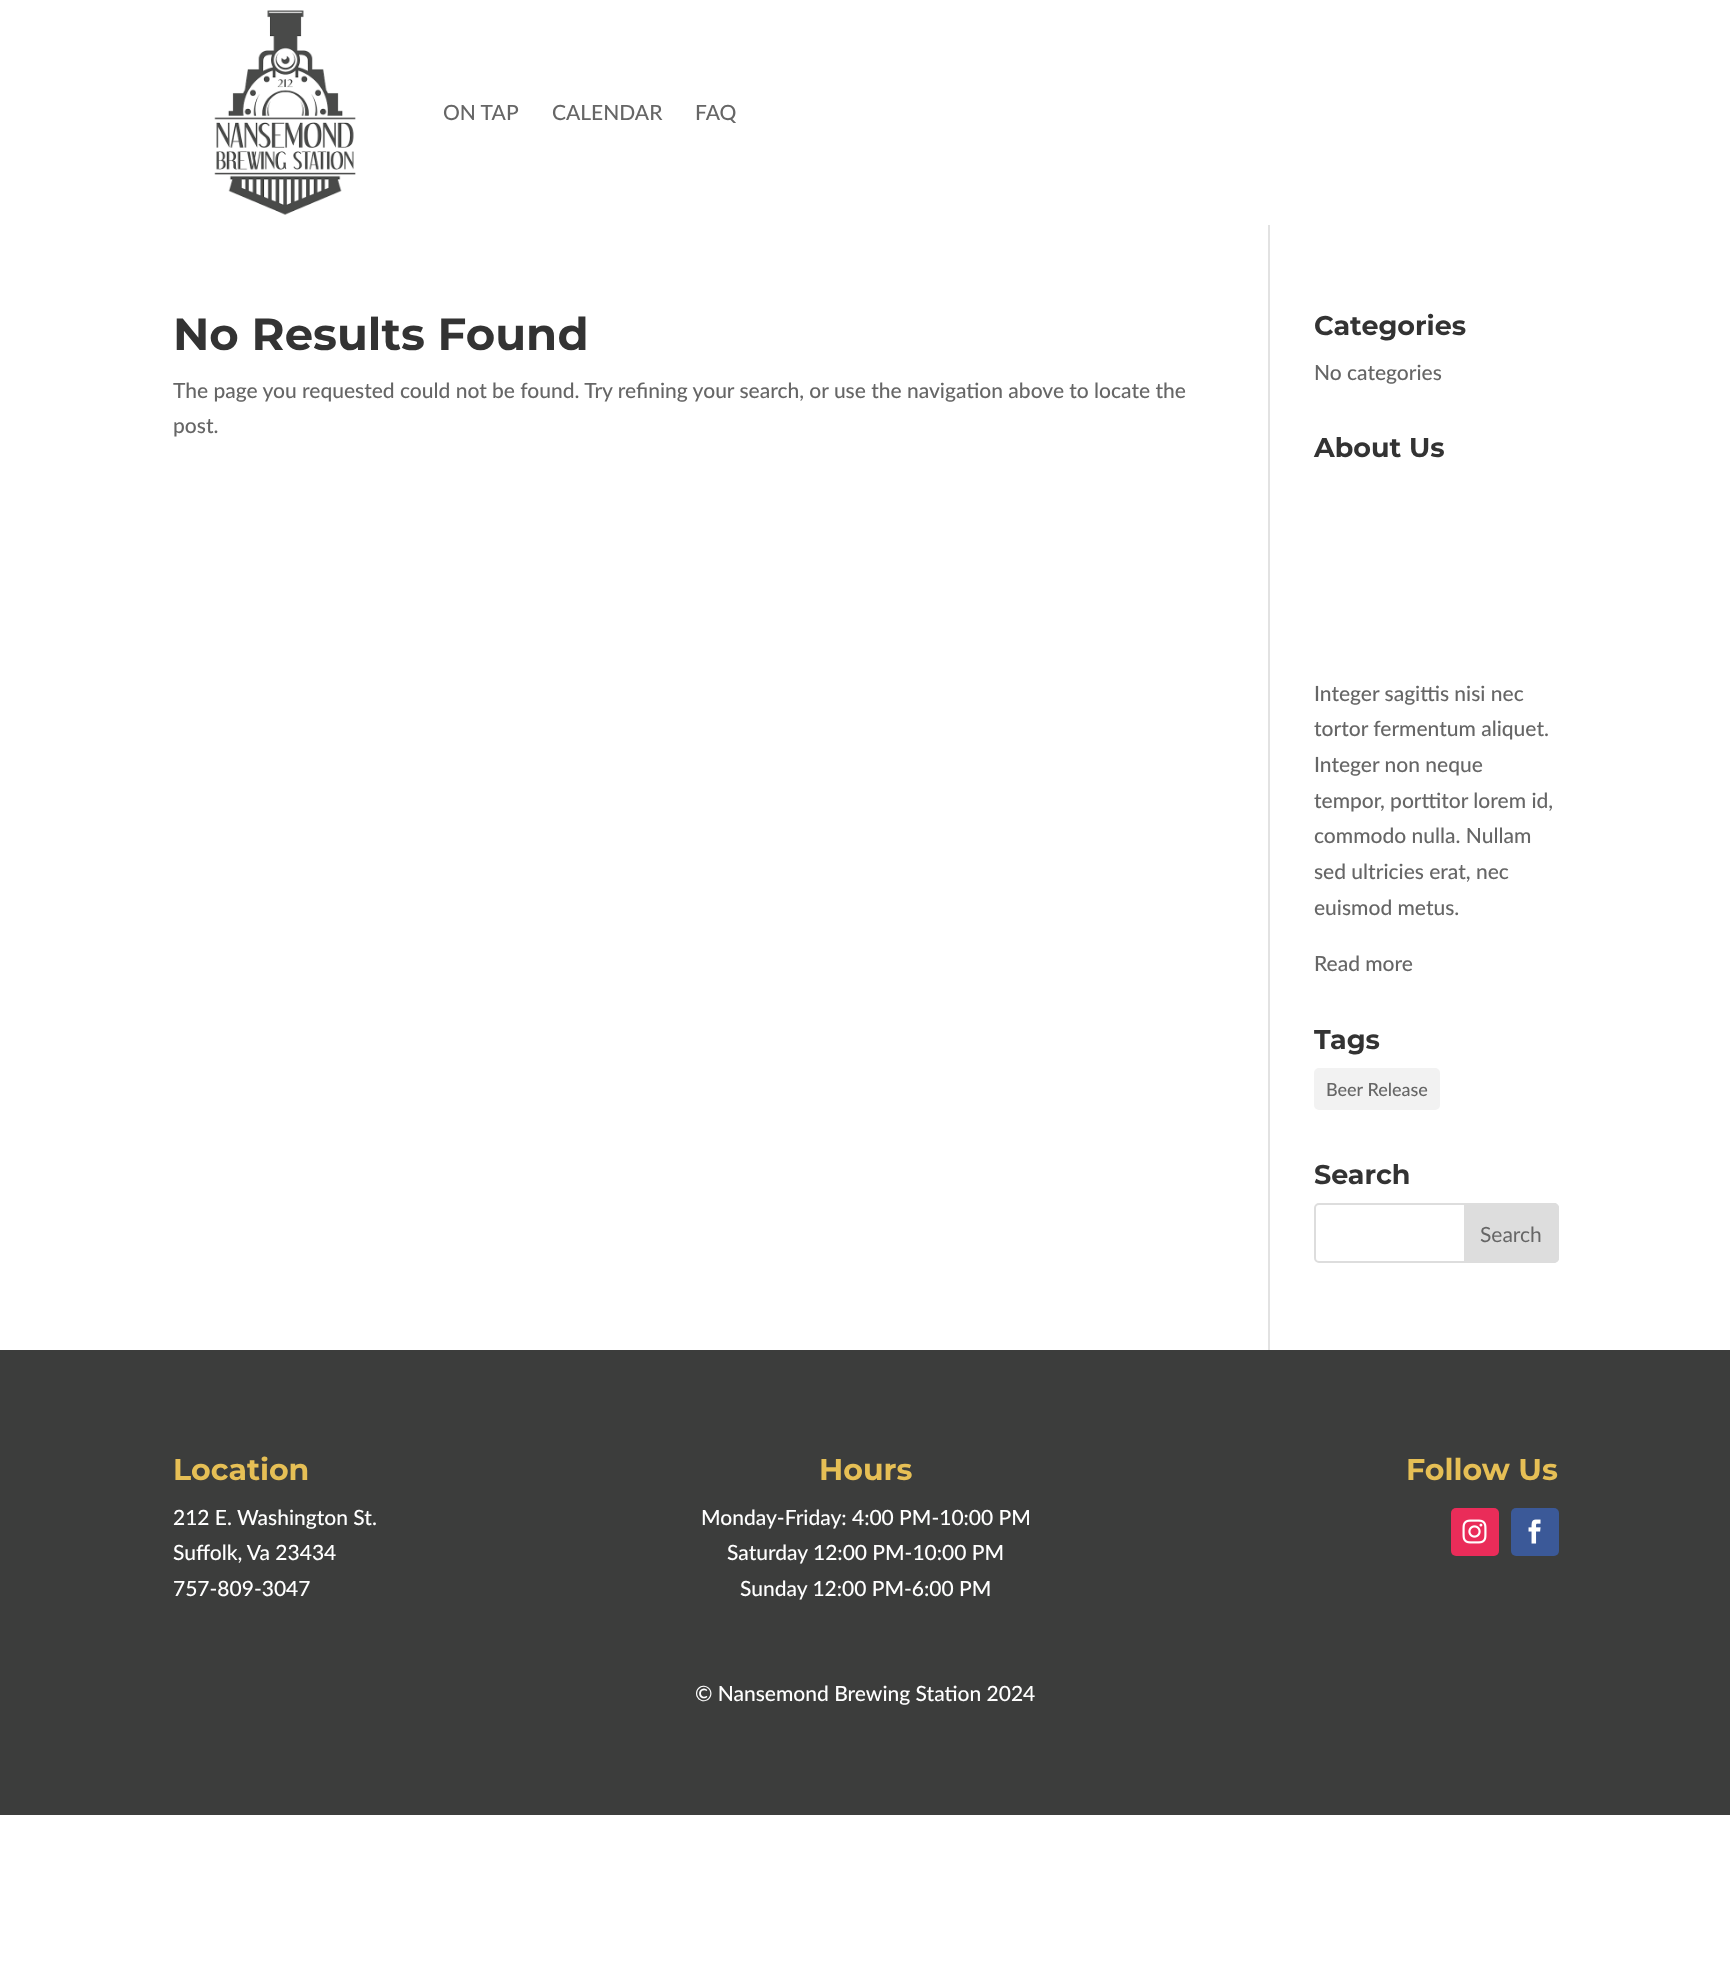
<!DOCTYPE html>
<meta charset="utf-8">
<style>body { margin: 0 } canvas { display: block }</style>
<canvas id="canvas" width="1730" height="1962"></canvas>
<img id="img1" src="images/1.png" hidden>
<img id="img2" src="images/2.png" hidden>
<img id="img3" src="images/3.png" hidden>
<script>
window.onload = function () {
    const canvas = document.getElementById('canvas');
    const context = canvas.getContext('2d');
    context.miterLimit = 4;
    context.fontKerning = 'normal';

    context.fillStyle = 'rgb(255, 255, 255)';
    context.fillRect(0, 0, 1730, 1962);
    context.drawImage(document.getElementById('img1'), 214, 10, 142, 205);
    context.fillStyle = 'rgb(226, 226, 226)';
    context.fillRect(1268, 225, 2, 1125);
    context.fillStyle = 'rgb(242, 242, 242)';
    context.beginPath();
    context.roundRect(1314, 1068, 126, 42, 5);
    context.fill();
    context.beginPath();
    context.roundRect(1315, 1204, 243, 58, 4);
    context.strokeStyle = 'rgb(221, 221, 221)';
    context.lineWidth = 2;
    context.stroke();
    context.fillStyle = 'rgb(221, 221, 221)';
    context.beginPath();
    context.roundRect(1465, 1204, 93, 58, [0, 4, 4, 0]);
    context.fill();
    context.stroke();
    context.fillStyle = 'rgb(60, 61, 60)';
    context.fillRect(0, 1350, 1730, 465);
    context.fillStyle = 'rgb(234, 44, 89)';
    context.beginPath();
    context.roundRect(1451, 1508, 48, 48, 5);
    context.fill();
    context.drawImage(document.getElementById('img2'), 1462, 1519, 25, 25);
    context.fillStyle = 'rgb(59, 89, 152)';
    context.beginPath();
    context.roundRect(1511, 1508, 48, 48, 5);
    context.fill();
    context.drawImage(document.getElementById('img3'), 1528, 1519, 13, 25);
    context.font = '500 21px Lato';
    context.fillStyle = 'rgb(102, 102, 102)';
    context.fillText('ON TAP', 443, 120);
    context.fillText('CALENDAR', 552, 120);
    context.fillText('FAQ', 695, 120);
    context.font = 'bold 45px Montserrat';
    context.fillStyle = 'rgb(51, 51, 51)';
    context.fillText('No Results Found', 173, 350);
    context.font = '500 21px Lato';
    context.fillStyle = 'rgb(102, 102, 102)';
    context.fillText('The page you requested could not be found. Try refining your search, or use the navigation above to locate the', 173, 398);
    context.fillText('post.', 173, 433);
    context.font = 'bold 27px Montserrat';
    context.fillStyle = 'rgb(51, 51, 51)';
    context.fillText('Categories', 1314, 335);
    context.font = '500 21px Lato';
    context.fillStyle = 'rgb(102, 102, 102)';
    context.fillText('No categories', 1314, 380);
    context.font = 'bold 27px Montserrat';
    context.fillStyle = 'rgb(51, 51, 51)';
    context.fillText('About Us', 1314, 457);
    context.font = '500 21px Lato';
    context.fillStyle = 'rgb(102, 102, 102)';
    context.fillText('Integer sagittis nisi nec', 1314, 701);
    context.fillText('tortor fermentum aliquet.', 1314, 736);
    context.fillText('Integer non neque', 1314, 772);
    context.fillText('tempor', 1314, 808);
    context.fillText(', porttitor lorem id,', 1380, 808);
    context.fillText('commodo nulla. Nullam', 1314, 843);
    context.fillText('sed ultricies erat, nec', 1314, 879);
    context.fillText('euismod metus.', 1314, 915);
    context.fillText('Read more', 1314, 971);
    context.font = 'bold 27px Montserrat';
    context.fillStyle = 'rgb(51, 51, 51)';
    context.fillText('Tags', 1314, 1049);
    context.font = '500 18px Lato';
    context.fillStyle = 'rgb(102, 102, 102)';
    context.fillText('Beer Release', 1326, 1096);
    context.font = 'bold 27px Montserrat';
    context.fillStyle = 'rgb(51, 51, 51)';
    context.fillText('Search', 1314, 1184);
    context.font = '21px Lato';
    context.fillStyle = 'rgb(102, 102, 102)';
    context.fillText('Search', 1480, 1242);
    context.font = 'bold 30px Montserrat';
    context.fillStyle = 'rgb(230, 191, 85)';
    context.fillText('Location', 173, 1480);
    context.font = '500 21px Lato';
    context.fillStyle = 'rgb(255, 255, 255)';
    context.fillText('212 E. Washington St.', 173, 1525);
    context.fillText('Suffolk, Va 23434', 173, 1560);
    context.fillText('757-809-3047', 173, 1596);
    context.font = 'bold 30px Montserrat';
    context.fillStyle = 'rgb(230, 191, 85)';
    context.fillText('Hours', 819, 1480);
    context.font = '500 21px Lato';
    context.fillStyle = 'rgb(255, 255, 255)';
    context.fillText('Monday-Friday: 4:00 PM-10:00 PM', 701, 1525);
    context.fillText('Saturday 12:00 PM-10:00 PM', 727, 1560);
    context.fillText('Sunday 12:00 PM-6:00 PM', 740, 1596);
    context.font = 'bold 30px Montserrat';
    context.fillStyle = 'rgb(230, 191, 85)';
    context.fillText('Follow Us', 1406, 1480);
    context.font = '500 21px Lato';
    context.fillStyle = 'rgb(255, 255, 255)';
    context.fillText('© Nansemond Brewing Station 2024', 695, 1701);
};
</script>
